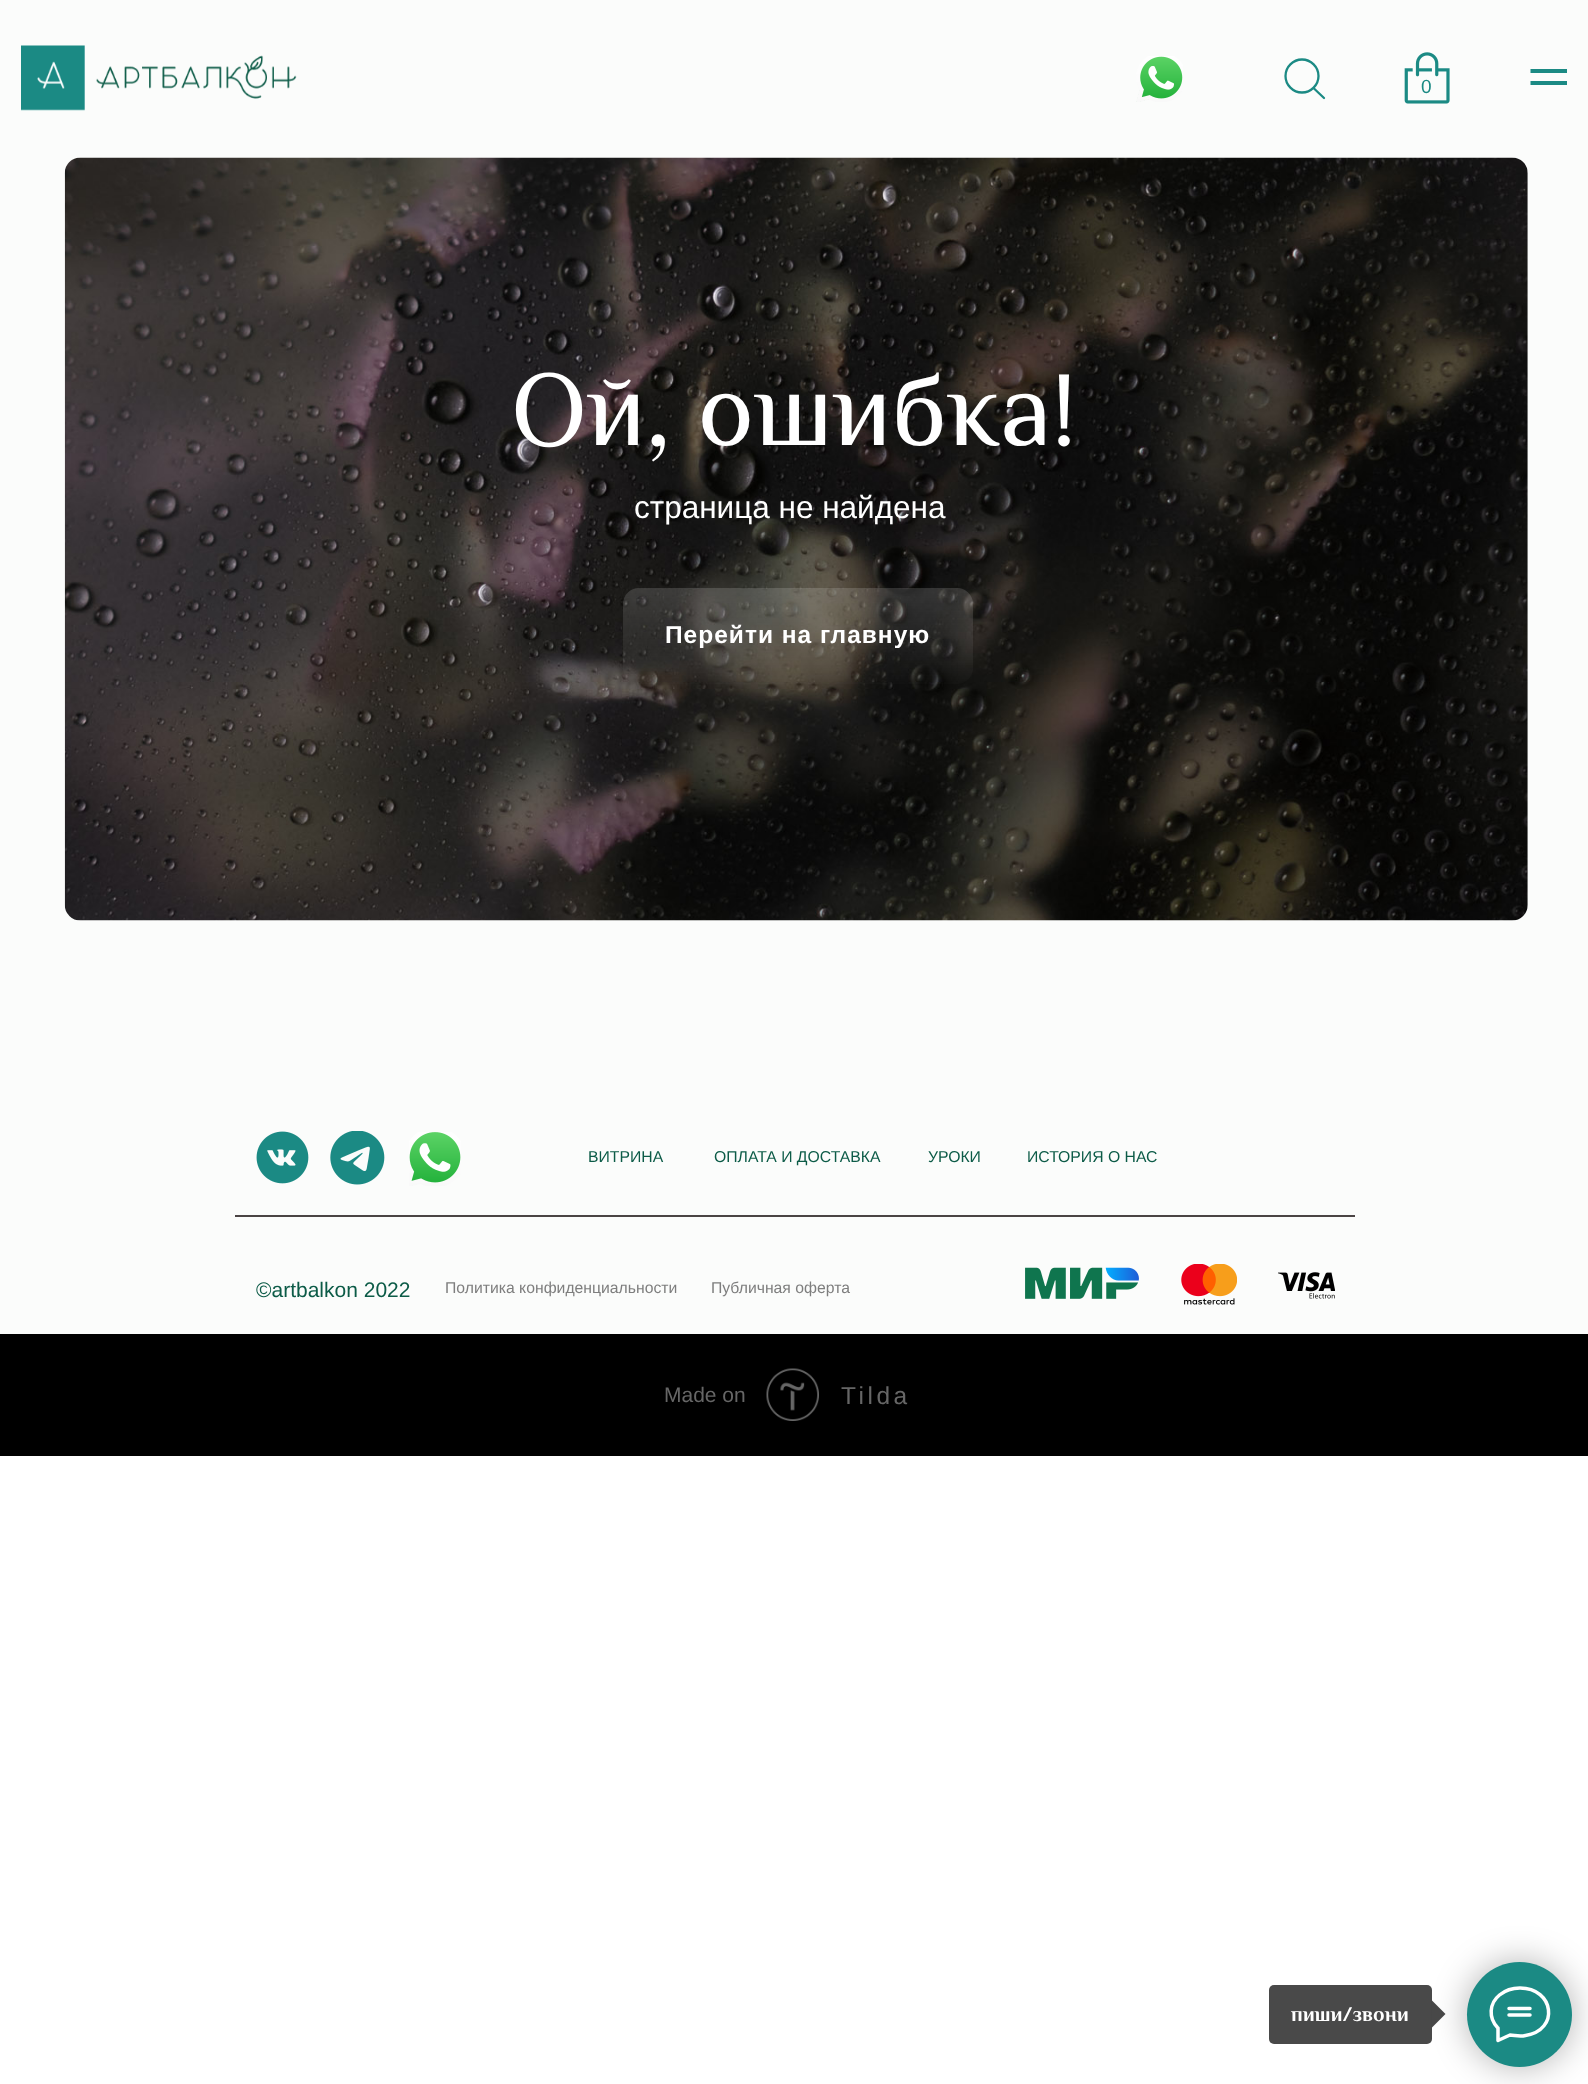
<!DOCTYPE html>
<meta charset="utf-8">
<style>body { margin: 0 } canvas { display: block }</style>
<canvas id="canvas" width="1588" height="2084"></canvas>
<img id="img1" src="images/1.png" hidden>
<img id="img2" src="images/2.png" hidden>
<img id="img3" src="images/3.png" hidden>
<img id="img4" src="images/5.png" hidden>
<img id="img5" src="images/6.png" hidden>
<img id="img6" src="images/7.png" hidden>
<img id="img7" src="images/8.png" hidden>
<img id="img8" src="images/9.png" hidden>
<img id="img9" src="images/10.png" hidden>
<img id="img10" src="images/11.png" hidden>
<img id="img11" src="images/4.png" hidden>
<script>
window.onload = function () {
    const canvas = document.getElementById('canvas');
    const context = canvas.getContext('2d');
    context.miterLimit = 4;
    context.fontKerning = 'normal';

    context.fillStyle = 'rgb(255, 255, 255)';
    context.fillRect(0, 0, 1588, 2084);
    context.fillStyle = 'rgb(251, 252, 251)';
    context.fillRect(0, 0, 1588, 1334);
    context.drawImage(document.getElementById('img1'), 64, 157, 1464, 764);
    context.drawImage(document.getElementById('img2'), 21, 45, 276, 66);
    context.drawImage(document.getElementById('img3'), 1136, 56, 47, 46);
    context.beginPath();
    context.moveTo(1302, 92.5);
    context.bezierCurveTo(1311, 92.5, 1318.5, 85, 1318.5, 76);
    context.bezierCurveTo(1318.5, 67, 1311, 59.5, 1302, 59.5);
    context.bezierCurveTo(1293, 59.5, 1285.5, 67, 1285.5, 76);
    context.bezierCurveTo(1285.5, 85, 1293, 92.5, 1302, 92.5);
    context.closePath();
    context.moveTo(1314, 88.5);
    context.lineTo(1324, 98);
    context.strokeStyle = 'rgb(27, 138, 132)';
    context.lineWidth = 2.3;
    context.lineCap = 'round';
    context.lineJoin = 'round';
    context.stroke();
    context.fillStyle = 'rgb(27, 138, 132)';
    context.beginPath();
    context.moveTo(1567, 85);
    context.lineTo(1530.5, 85);
    context.lineTo(1530.5, 81);
    context.lineTo(1567, 81);
    context.closePath();
    context.moveTo(1567, 73);
    context.lineTo(1530.5, 73);
    context.lineTo(1530.5, 69);
    context.lineTo(1567, 69);
    context.closePath();
    context.fill();
    context.fillStyle = 'rgb(73, 73, 73)';
    context.beginPath();
    context.roundRect(1269, 1985, 163, 59, 5);
    context.fill();
    context.beginPath();
    context.moveTo(1431.5, 2028);
    context.lineTo(1431.5, 2000);
    context.lineTo(1445.5, 2014);
    context.closePath();
    context.fill();
    context.fillStyle = 'rgba(0, 0, 0, 0.3)';
    context.filter = 'blur(17.5px)';
    context.beginPath();
    context.roundRect(1467, 1962, 105, 105, 52.5);
    context.fill();
    context.filter = 'none';
    context.fillStyle = 'rgb(27, 138, 132)';
    context.beginPath();
    context.arc(1519.5, 2014.5, 52.5, 0, 2 * Math.PI);
    context.fill();
    context.beginPath();
    context.moveTo(1509, 2008.5);
    context.lineTo(1530, 2008.5);
    context.moveTo(1509, 2015);
    context.lineTo(1530, 2015);
    context.moveTo(1497.5, 2027.5);
    context.bezierCurveTo(1488.5, 2018, 1489, 2003.5, 1499.5, 1995);
    context.bezierCurveTo(1505, 1990.5, 1512.5, 1988, 1520, 1988);
    context.bezierCurveTo(1554, 1988, 1560, 2030, 1525.5, 2035.5);
    context.bezierCurveTo(1519.5, 2037, 1516, 2035.5, 1510, 2035);
    context.lineTo(1498, 2040.5);
    context.lineTo(1498, 2028);
    context.closePath();
    context.strokeStyle = 'rgb(255, 255, 255)';
    context.lineWidth = 3.5;
    context.stroke();
    context.drawImage(document.getElementById('img4'), 256, 1131, 53, 53);
    context.drawImage(document.getElementById('img5'), 330, 1131, 55, 54);
    context.drawImage(document.getElementById('img6'), 409, 1132, 52, 54);
    context.fillStyle = 'rgb(74, 68, 68)';
    context.fillRect(235, 1215, 1120, 2);
    context.drawImage(document.getElementById('img7'), 1025, 1267, 114, 32);
    context.drawImage(document.getElementById('img8'), 1181, 1264, 56, 41);
    context.drawImage(document.getElementById('img9'), 1278, 1272, 57, 27);
    context.fillStyle = 'rgb(0, 0, 0)';
    context.fillRect(0, 1334, 1588, 122);
    context.drawImage(document.getElementById('img10'), 766, 1368, 53, 53);
    context.font = '106.75px Philosopher';
    context.fillStyle = 'rgb(255, 255, 255)';
    context.fillText('Ой, ошибка!', 511, 445);
    context.font = '31.5px Liberation Sans';
    context.fillText('страница не найдена', 634, 518);
    context.letterSpacing = '1px';
    context.font = 'bold 24.5px Liberation Sans';
    context.fillText('Перейти на главную', 665, 643);
    context.letterSpacing = '0px';
    context.font = '19px Liberation Sans';
    context.fillStyle = 'rgb(27, 138, 132)';
    context.fillText('0', 1421, 93);
    context.drawImage(document.getElementById('img11'), 1404, 52, 46, 52);
    context.font = 'bold 21px Philosopher';
    context.fillStyle = 'rgb(255, 255, 255)';
    context.fillText('пиши/звони', 1291, 2021);
    context.font = '15.75px Liberation Sans';
    context.fillStyle = 'rgb(12, 91, 71)';
    context.fillText('ВИТРИНА', 588, 1162);
    context.fillText('ОПЛАТА И ДОСТАВКА', 714, 1162);
    context.fillText('УРОКИ', 928, 1162);
    context.fillText('ИСТОРИЯ О НАС', 1027, 1162);
    context.font = '21px Liberation Sans';
    context.fillText('©artbalkon 2022', 256, 1297);
    context.font = '15.75px Liberation Sans';
    context.fillStyle = 'rgb(126, 126, 126)';
    context.fillText('Политика конфиденциальности', 445, 1293);
    context.fillText('Публичная оферта', 711, 1293);
    context.font = '21px Liberation Sans';
    context.fillStyle = 'rgb(102, 102, 102)';
    context.fillText('Made on', 664, 1402);
    context.letterSpacing = '3.5px';
    context.font = '24.5px Liberation Sans';
    context.fillText('Tilda', 841, 1404);
};
</script>
